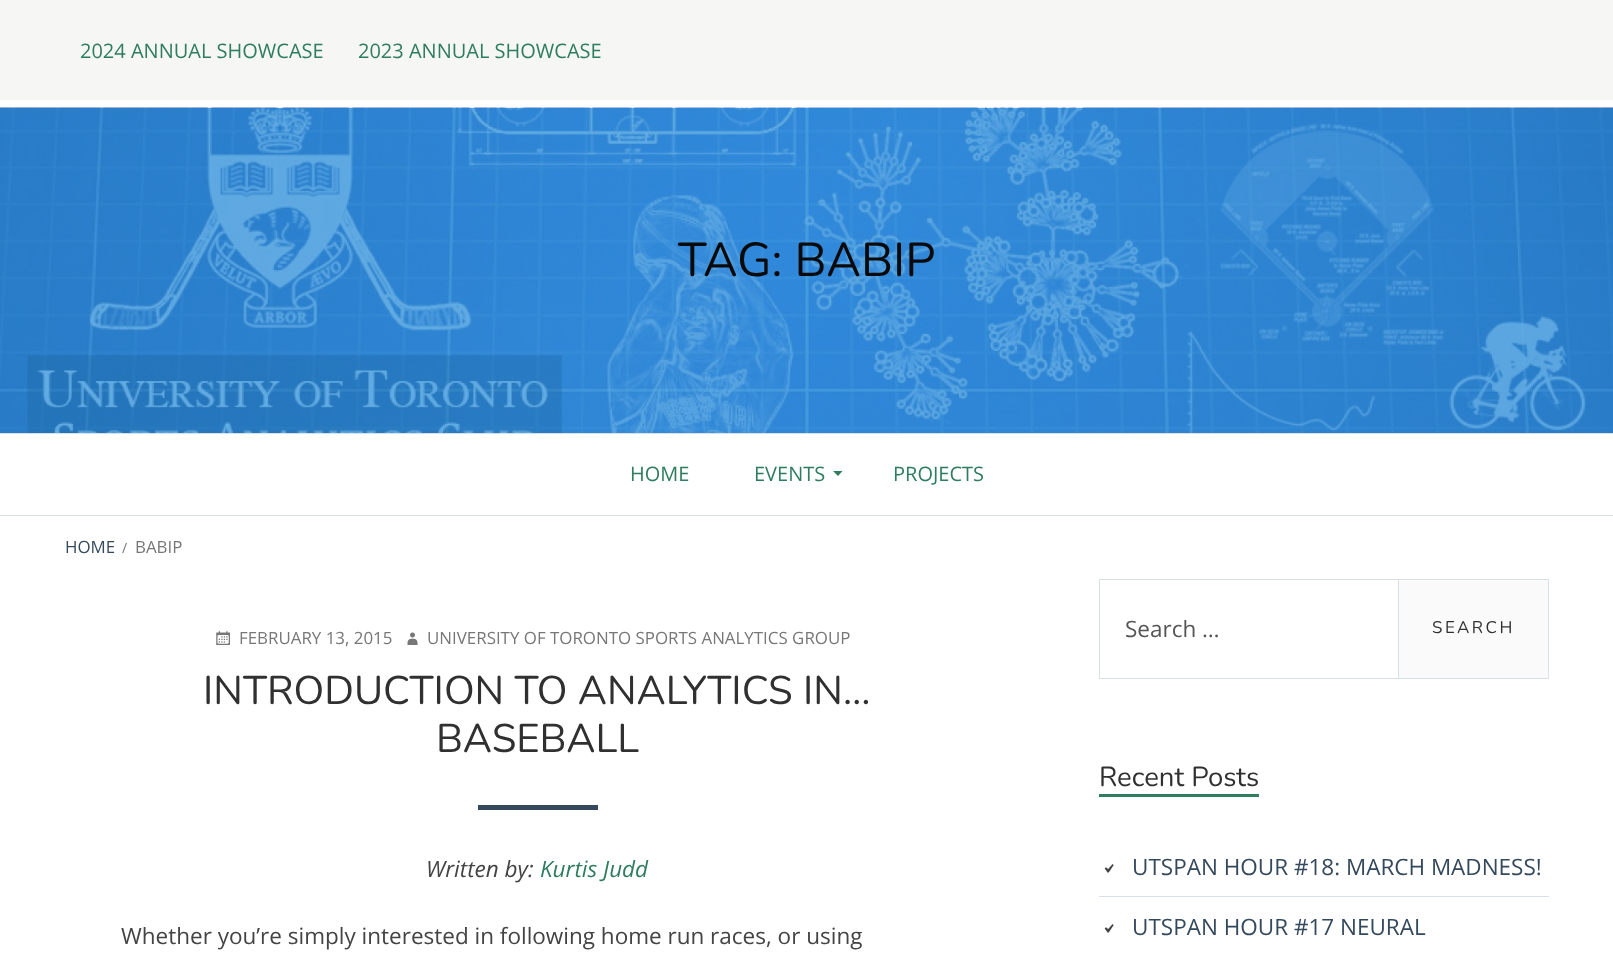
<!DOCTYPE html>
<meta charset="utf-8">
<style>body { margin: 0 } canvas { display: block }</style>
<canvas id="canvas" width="1613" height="956"></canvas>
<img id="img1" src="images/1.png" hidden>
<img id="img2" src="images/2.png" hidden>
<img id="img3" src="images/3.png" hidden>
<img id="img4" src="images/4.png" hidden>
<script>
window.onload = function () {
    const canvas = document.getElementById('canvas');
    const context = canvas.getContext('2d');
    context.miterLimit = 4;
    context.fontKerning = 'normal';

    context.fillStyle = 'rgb(255, 255, 255)';
    context.fillRect(0, 0, 1613, 956);
    context.fillStyle = 'rgb(246, 246, 244)';
    context.fillRect(0, 0, 1613, 100);
    context.drawImage(document.getElementById('img1'), 0, 107, 1613, 326);
    context.fillStyle = 'rgb(217, 225, 231)';
    context.fillRect(0, 433, 1613, 1);
    context.fillRect(0, 515, 1613, 1);
    context.fillStyle = 'rgb(45, 125, 94)';
    context.beginPath();
    context.moveTo(833, 471);
    context.lineTo(842.5, 471);
    context.lineTo(838, 476);
    context.closePath();
    context.fill();
    context.drawImage(document.getElementById('img2'), 216, 631, 14, 14);
    context.drawImage(document.getElementById('img3'), 407, 632, 11, 13);
    context.fillStyle = 'rgb(53, 73, 93)';
    context.fillRect(478, 805, 120, 5);
    context.strokeStyle = 'rgb(217, 225, 231)';
    context.strokeRect(1099.5, 579.5, 449, 99);
    context.fillStyle = 'rgb(250, 250, 250)';
    context.fillRect(1399, 580, 149, 98);
    context.fillStyle = 'rgb(217, 225, 231)';
    context.fillRect(1398, 580, 1, 98);
    context.fillStyle = 'rgb(45, 125, 94)';
    context.fillRect(1099, 794, 160, 3);
    context.fillStyle = 'rgb(217, 225, 231)';
    context.fillRect(1099, 896, 450, 1);
    context.drawImage(document.getElementById('img4'), 1104, 864, 10, 9);
    context.drawImage(document.getElementById('img4'), 1104, 924, 10, 9);
    context.font = '20px Open Sans';
    context.fillStyle = 'rgb(45, 125, 94)';
    context.fillText('2024 ANNUAL SHOWCASE', 80, 58);
    context.fillText('2023 ANNUAL SHOWCASE', 358, 58);
    context.font = '47.5px Nunito';
    context.fillStyle = 'rgb(10, 10, 10)';
    context.fillText('TAG: BABIP', 678, 276);
    context.font = '20px Open Sans';
    context.fillStyle = 'rgb(45, 125, 94)';
    context.fillText('HOME', 630, 481);
    context.fillText('EVENTS', 754, 481);
    context.fillText('PROJECTS', 893, 481);
    context.font = '16.9px Open Sans';
    context.fillStyle = 'rgb(53, 73, 93)';
    context.fillText('HOME', 65, 553);
    context.font = '14px Open Sans';
    context.fillStyle = 'rgb(119, 119, 119)';
    context.fillText('/', 122, 553);
    context.font = '16.9px Open Sans';
    context.fillText('BABIP', 135, 553);
    context.fillText('FEBRUARY 13, 2015', 239, 644);
    context.fillText('UNIVERSITY OF TORONTO SPORTS ANALYTICS GROUP', 427, 644);
    context.font = '40px Nunito';
    context.fillStyle = 'rgb(48, 48, 48)';
    context.fillText('INTRODUCTION TO ANALYTICS IN…', 203, 704);
    context.fillText('BASEBALL', 436, 752);
    context.font = 'italic 22.5px Open Sans';
    context.fillStyle = 'rgb(68, 68, 68)';
    context.fillText('Written by:', 426, 877);
    context.fillStyle = 'rgb(45, 125, 94)';
    context.fillText('Kurtis Judd', 540, 877);
    context.font = '22.5px Open Sans';
    context.fillStyle = 'rgb(68, 68, 68)';
    context.fillText('Whether you’re simply interested in following home run races, or using', 121, 944);
    context.fillStyle = 'rgb(85, 85, 85)';
    context.fillText('Search …', 1125, 637);
    context.letterSpacing = '2.5px';
    context.font = '16.9px Nunito';
    context.fillStyle = 'rgb(48, 48, 48)';
    context.fillText('SEARCH', 1432, 633);
    context.letterSpacing = '0px';
    context.font = '27.5px Nunito';
    context.fillText('Recent Posts', 1099, 786);
    context.font = '22.5px Open Sans';
    context.fillStyle = 'rgb(53, 73, 93)';
    context.fillText('UTSPAN HOUR #18: MARCH MADNESS!', 1132, 875);
    context.fillText('UTSPAN HOUR #17 NEURAL', 1132, 935);
};
</script>
